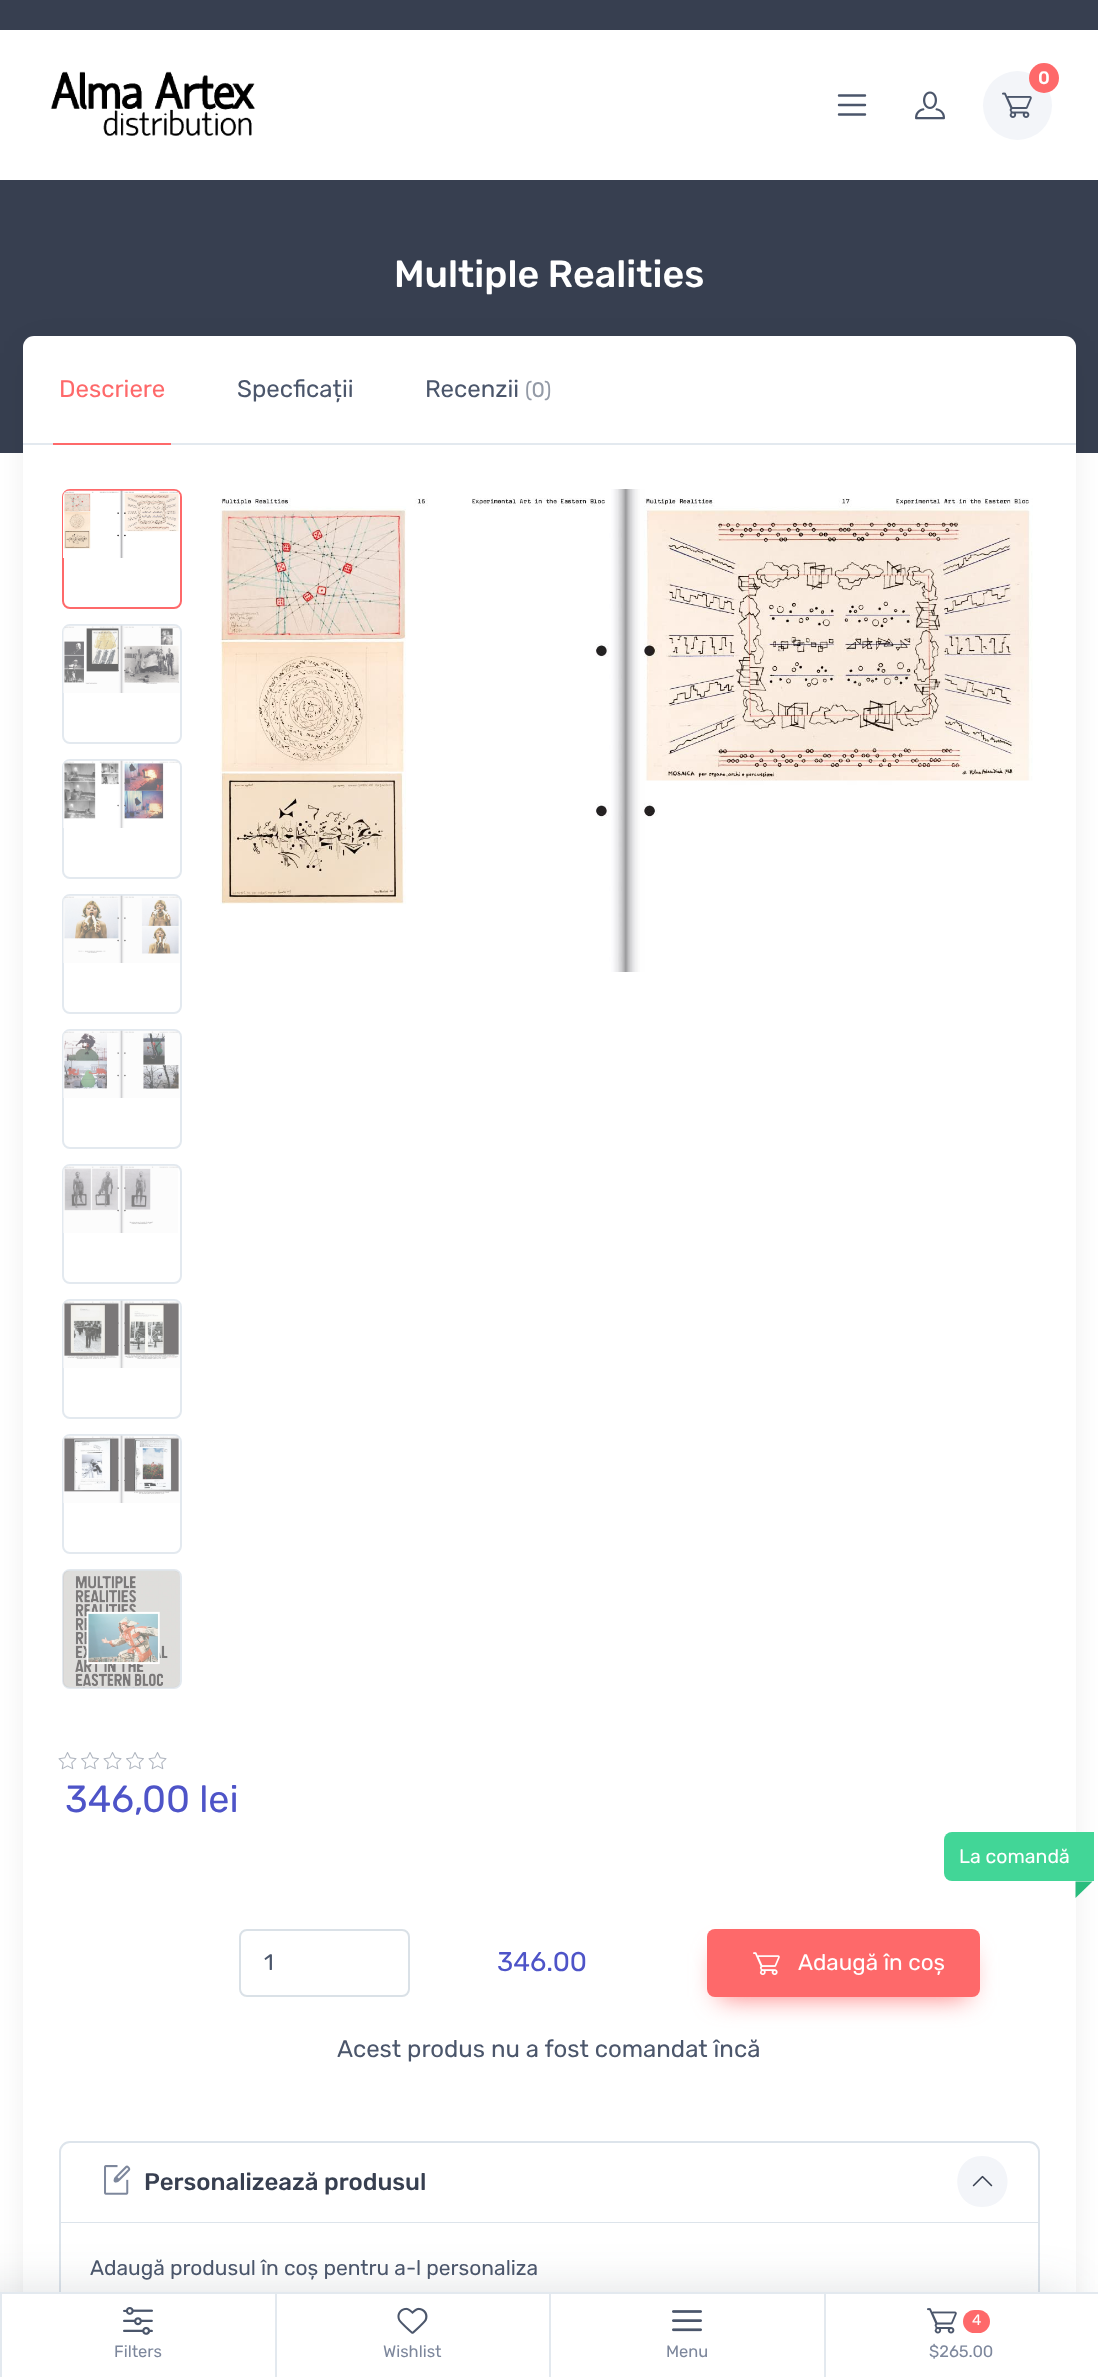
<!DOCTYPE html>
<meta charset="utf-8">
<style>body { margin: 0 } canvas { display: block }</style>
<canvas id="canvas" width="1098" height="2377"></canvas>
<img id="img1" src="images/1.png" hidden>
<img id="img2" src="images/2.png" hidden>
<img id="img3" src="images/3.png" hidden>
<img id="img4" src="images/4.png" hidden>
<img id="img5" src="images/5.png" hidden>
<img id="img6" src="images/6.png" hidden>
<img id="img7" src="images/7.png" hidden>
<img id="img8" src="images/8.png" hidden>
<img id="img9" src="images/9.png" hidden>
<img id="img10" src="images/10.png" hidden>
<img id="img11" src="images/11.png" hidden>
<img id="img12" src="images/12.png" hidden>
<img id="img13" src="images/13.png" hidden>
<img id="img14" src="images/14.png" hidden>
<img id="img15" src="images/15.png" hidden>
<img id="img16" src="images/16.png" hidden>
<img id="img17" src="images/17.png" hidden>
<img id="img18" src="images/18.png" hidden>
<img id="img19" src="images/19.png" hidden>
<img id="img20" src="images/20.png" hidden>
<img id="img21" src="images/21.png" hidden>
<img id="img22" src="images/22.png" hidden>
<script>
window.onload = function () {
    const canvas = document.getElementById('canvas');
    const context = canvas.getContext('2d');
    context.miterLimit = 4;
    context.fontKerning = 'normal';

    context.fillStyle = 'rgb(255, 255, 255)';
    context.fillRect(0, 0, 1098, 2377);
    context.fillStyle = 'rgb(55, 63, 80)';
    context.fillRect(0, 0, 1098, 30);
    context.drawImage(document.getElementById('img1'), 50, 71, 206, 65);
    context.fillStyle = 'rgb(243, 245, 249)';
    context.beginPath();
    context.arc(1017.5, 105.5, 34.5, 0, 2 * Math.PI);
    context.fill();
    context.drawImage(document.getElementById('img2'), 1002, 92, 30, 26);
    context.fillStyle = 'rgb(254, 105, 106)';
    context.beginPath();
    context.arc(1044, 78, 15, 0, 2 * Math.PI);
    context.fill();
    context.beginPath();
    context.moveTo(839, 95.5);
    context.lineTo(865, 95.5);
    context.moveTo(839, 105);
    context.lineTo(865, 105);
    context.moveTo(839, 114.5);
    context.lineTo(865, 114.5);
    context.strokeStyle = 'rgb(75, 86, 107)';
    context.lineWidth = 2.4;
    context.lineCap = 'round';
    context.stroke();
    context.drawImage(document.getElementById('img3'), 915, 91, 30, 29);
    context.fillStyle = 'rgb(55, 63, 80)';
    context.fillRect(0, 180, 1098, 273);
    context.fillStyle = 'rgba(0, 0, 0, 0.1)';
    context.filter = 'blur(18.5px)';
    context.beginPath();
    context.roundRect(32, 353, 1035, 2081, 1.5);
    context.fill();
    context.filter = 'none';
    context.fillStyle = 'rgb(255, 255, 255)';
    context.beginPath();
    context.roundRect(23, 336, 1053, 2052, 11);
    context.fill();
    context.fillStyle = 'rgb(227, 233, 239)';
    context.fillRect(23, 443, 1053, 2);
    context.fillStyle = 'rgb(254, 105, 106)';
    context.fillRect(53, 443, 118, 2);
    context.beginPath();
    context.roundRect(63, 490, 118, 118, 7);
    context.strokeStyle = 'rgb(254, 105, 106)';
    context.lineWidth = 2;
    context.stroke();
    context.drawImage(document.getElementById('img4'), 63, 490, 117, 68);
    context.beginPath();
    context.roundRect(63, 625, 118, 118, 7);
    context.strokeStyle = 'rgb(227, 233, 239)';
    context.stroke();
    context.drawImage(document.getElementById('img5'), 63, 625, 117, 68);
    context.beginPath();
    context.roundRect(63, 760, 118, 118, 7);
    context.stroke();
    context.drawImage(document.getElementById('img6'), 63, 760, 117, 68);
    context.beginPath();
    context.roundRect(63, 895, 118, 118, 7);
    context.stroke();
    context.drawImage(document.getElementById('img7'), 63, 895, 117, 68);
    context.beginPath();
    context.roundRect(63, 1030, 118, 118, 7);
    context.stroke();
    context.drawImage(document.getElementById('img8'), 63, 1030, 117, 68);
    context.beginPath();
    context.roundRect(63, 1165, 118, 118, 7);
    context.stroke();
    context.drawImage(document.getElementById('img9'), 63, 1165, 115, 68);
    context.beginPath();
    context.roundRect(63, 1300, 118, 118, 7);
    context.stroke();
    context.drawImage(document.getElementById('img10'), 63, 1300, 117, 68);
    context.beginPath();
    context.roundRect(63, 1435, 118, 118, 7);
    context.stroke();
    context.drawImage(document.getElementById('img11'), 63, 1435, 117, 68);
    context.beginPath();
    context.roundRect(63, 1570, 118, 118, 7);
    context.stroke();
    context.drawImage(document.getElementById('img12'), 63, 1570, 117, 118);
    context.drawImage(document.getElementById('img13'), 220, 489, 813, 483);
    context.drawImage(document.getElementById('img14'), 58, 1752, 19, 18);
    context.drawImage(document.getElementById('img15'), 81, 1752, 18, 18);
    context.drawImage(document.getElementById('img14'), 103, 1752, 19, 18);
    context.drawImage(document.getElementById('img15'), 126, 1752, 18, 18);
    context.drawImage(document.getElementById('img14'), 148, 1752, 19, 18);
    context.fillStyle = 'rgb(66, 214, 151)';
    context.beginPath();
    context.roundRect(944, 1832, 150, 49, [8, 0, 0, 8]);
    context.fill();
    context.fillStyle = 'rgb(41, 188, 125)';
    context.beginPath();
    context.moveTo(1092.5, 1881.5);
    context.lineTo(1075.5, 1898);
    context.lineTo(1075.5, 1881.5);
    context.closePath();
    context.fill();
    context.beginPath();
    context.roundRect(240, 1930, 169, 66, 7);
    context.strokeStyle = 'rgb(218, 225, 231)';
    context.stroke();
    context.fillStyle = 'rgba(254, 105, 106, 0.9)';
    context.filter = 'blur(13.5px)';
    context.beginPath();
    context.rect(719, 1953, 249, 44);
    context.fill();
    context.filter = 'none';
    context.fillStyle = 'rgb(254, 105, 106)';
    context.beginPath();
    context.roundRect(707, 1929, 273, 68, 8);
    context.fill();
    context.drawImage(document.getElementById('img16'), 753, 1952, 27, 23);
    context.beginPath();
    context.roundRect(60, 2142, 979, 173, [10, 10, 0, 0]);
    context.strokeStyle = 'rgb(221, 228, 235)';
    context.stroke();
    context.fillStyle = 'rgb(221, 228, 235)';
    context.fillRect(60, 2222, 978, 1);
    context.drawImage(document.getElementById('img17'), 104, 2165, 27, 30);
    context.fillStyle = 'rgb(243, 245, 249)';
    context.beginPath();
    context.moveTo(982, 2207);
    context.bezierCurveTo(949, 2207, 949, 2156, 982, 2156);
    context.bezierCurveTo(1016, 2156, 1016, 2207, 982, 2207);
    context.closePath();
    context.fill();
    context.drawImage(document.getElementById('img18'), 972, 2175, 21, 12);
    context.fillStyle = 'rgba(43, 52, 69, 0.15)';
    context.filter = 'blur(24px)';
    context.beginPath();
    context.rect(-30, 2292, 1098, 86);
    context.fill();
    context.filter = 'none';
    context.fillStyle = 'rgb(255, 255, 255)';
    context.fillRect(2, 2294, 1096, 83);
    context.fillStyle = 'rgb(227, 233, 239)';
    context.fillRect(0, 2292, 1098, 2);
    context.fillRect(0, 2294, 2, 83);
    context.drawImage(document.getElementById('img19'), 123, 2307, 30, 28);
    context.fillRect(275, 2294, 2, 83);
    context.drawImage(document.getElementById('img20'), 397, 2307, 31, 27);
    context.fillRect(549, 2294, 2, 83);
    context.drawImage(document.getElementById('img21'), 672, 2310, 30, 22);
    context.fillRect(824, 2294, 2, 83);
    context.drawImage(document.getElementById('img22'), 927, 2308, 30, 26);
    context.fillStyle = 'rgb(254, 105, 106)';
    context.beginPath();
    context.roundRect(963, 2310, 27, 23, 11.5);
    context.fill();
    context.font = '500 18px Rubik';
    context.fillStyle = 'rgb(255, 255, 255)';
    context.fillText('0', 1038, 84);
    context.font = '500 37.75px Rubik';
    context.fillText('Multiple Realities', 394, 287);
    context.font = '24px Rubik';
    context.fillStyle = 'rgb(254, 105, 106)';
    context.fillText('Descriere', 59, 397);
    context.fillStyle = 'rgb(75, 86, 107)';
    context.fillText('Specficații', 237, 397);
    context.fillText('Recenzii', 425, 397);
    context.font = '21px Rubik';
    context.fillStyle = 'rgb(147, 154, 166)';
    context.fillText('(0)', 525, 397);
    context.font = '37.75px Rubik';
    context.fillStyle = 'rgb(78, 84, 200)';
    context.fillText('346,', 65, 1812);
    context.fillText('00 lei', 142, 1812);
    context.font = '19.5px Rubik';
    context.fillStyle = 'rgb(255, 255, 255)';
    context.fillText('La comandă', 959, 1863);
    context.font = '22.5px Rubik';
    context.fillStyle = 'rgb(75, 86, 107)';
    context.fillText('1', 264, 1970);
    context.font = '27px Rubik';
    context.fillStyle = 'rgb(78, 84, 200)';
    context.fillText('346.00', 497, 1971);
    context.font = '22.5px Rubik';
    context.fillStyle = 'rgb(255, 255, 255)';
    context.fillText('Adaugă în coș', 798, 1970);
    context.font = '24px Rubik';
    context.fillStyle = 'rgb(75, 86, 107)';
    context.fillText('Acest produs nu a fost comandat încă', 337, 2057);
    context.font = '500 24px Rubik';
    context.fillStyle = 'rgb(55, 63, 80)';
    context.fillText('Personalizează produsul', 144, 2190);
    context.font = '21px Rubik';
    context.fillStyle = 'rgb(75, 86, 107)';
    context.fillText('Adaugă produsul în coș pentru a-l personaliza', 90, 2275);
    context.font = '16.5px Rubik';
    context.fillStyle = 'rgb(125, 135, 156)';
    context.fillText('Filters', 114, 2357);
    context.fillText('Wishlist', 383, 2357);
    context.fillText('Menu', 666, 2357);
    context.font = '15px Rubik';
    context.fillStyle = 'rgb(255, 255, 255)';
    context.fillText('4', 972, 2325);
    context.font = '16.5px Rubik';
    context.fillStyle = 'rgb(125, 135, 156)';
    context.fillText('$265.00', 929, 2357);
};
</script>
